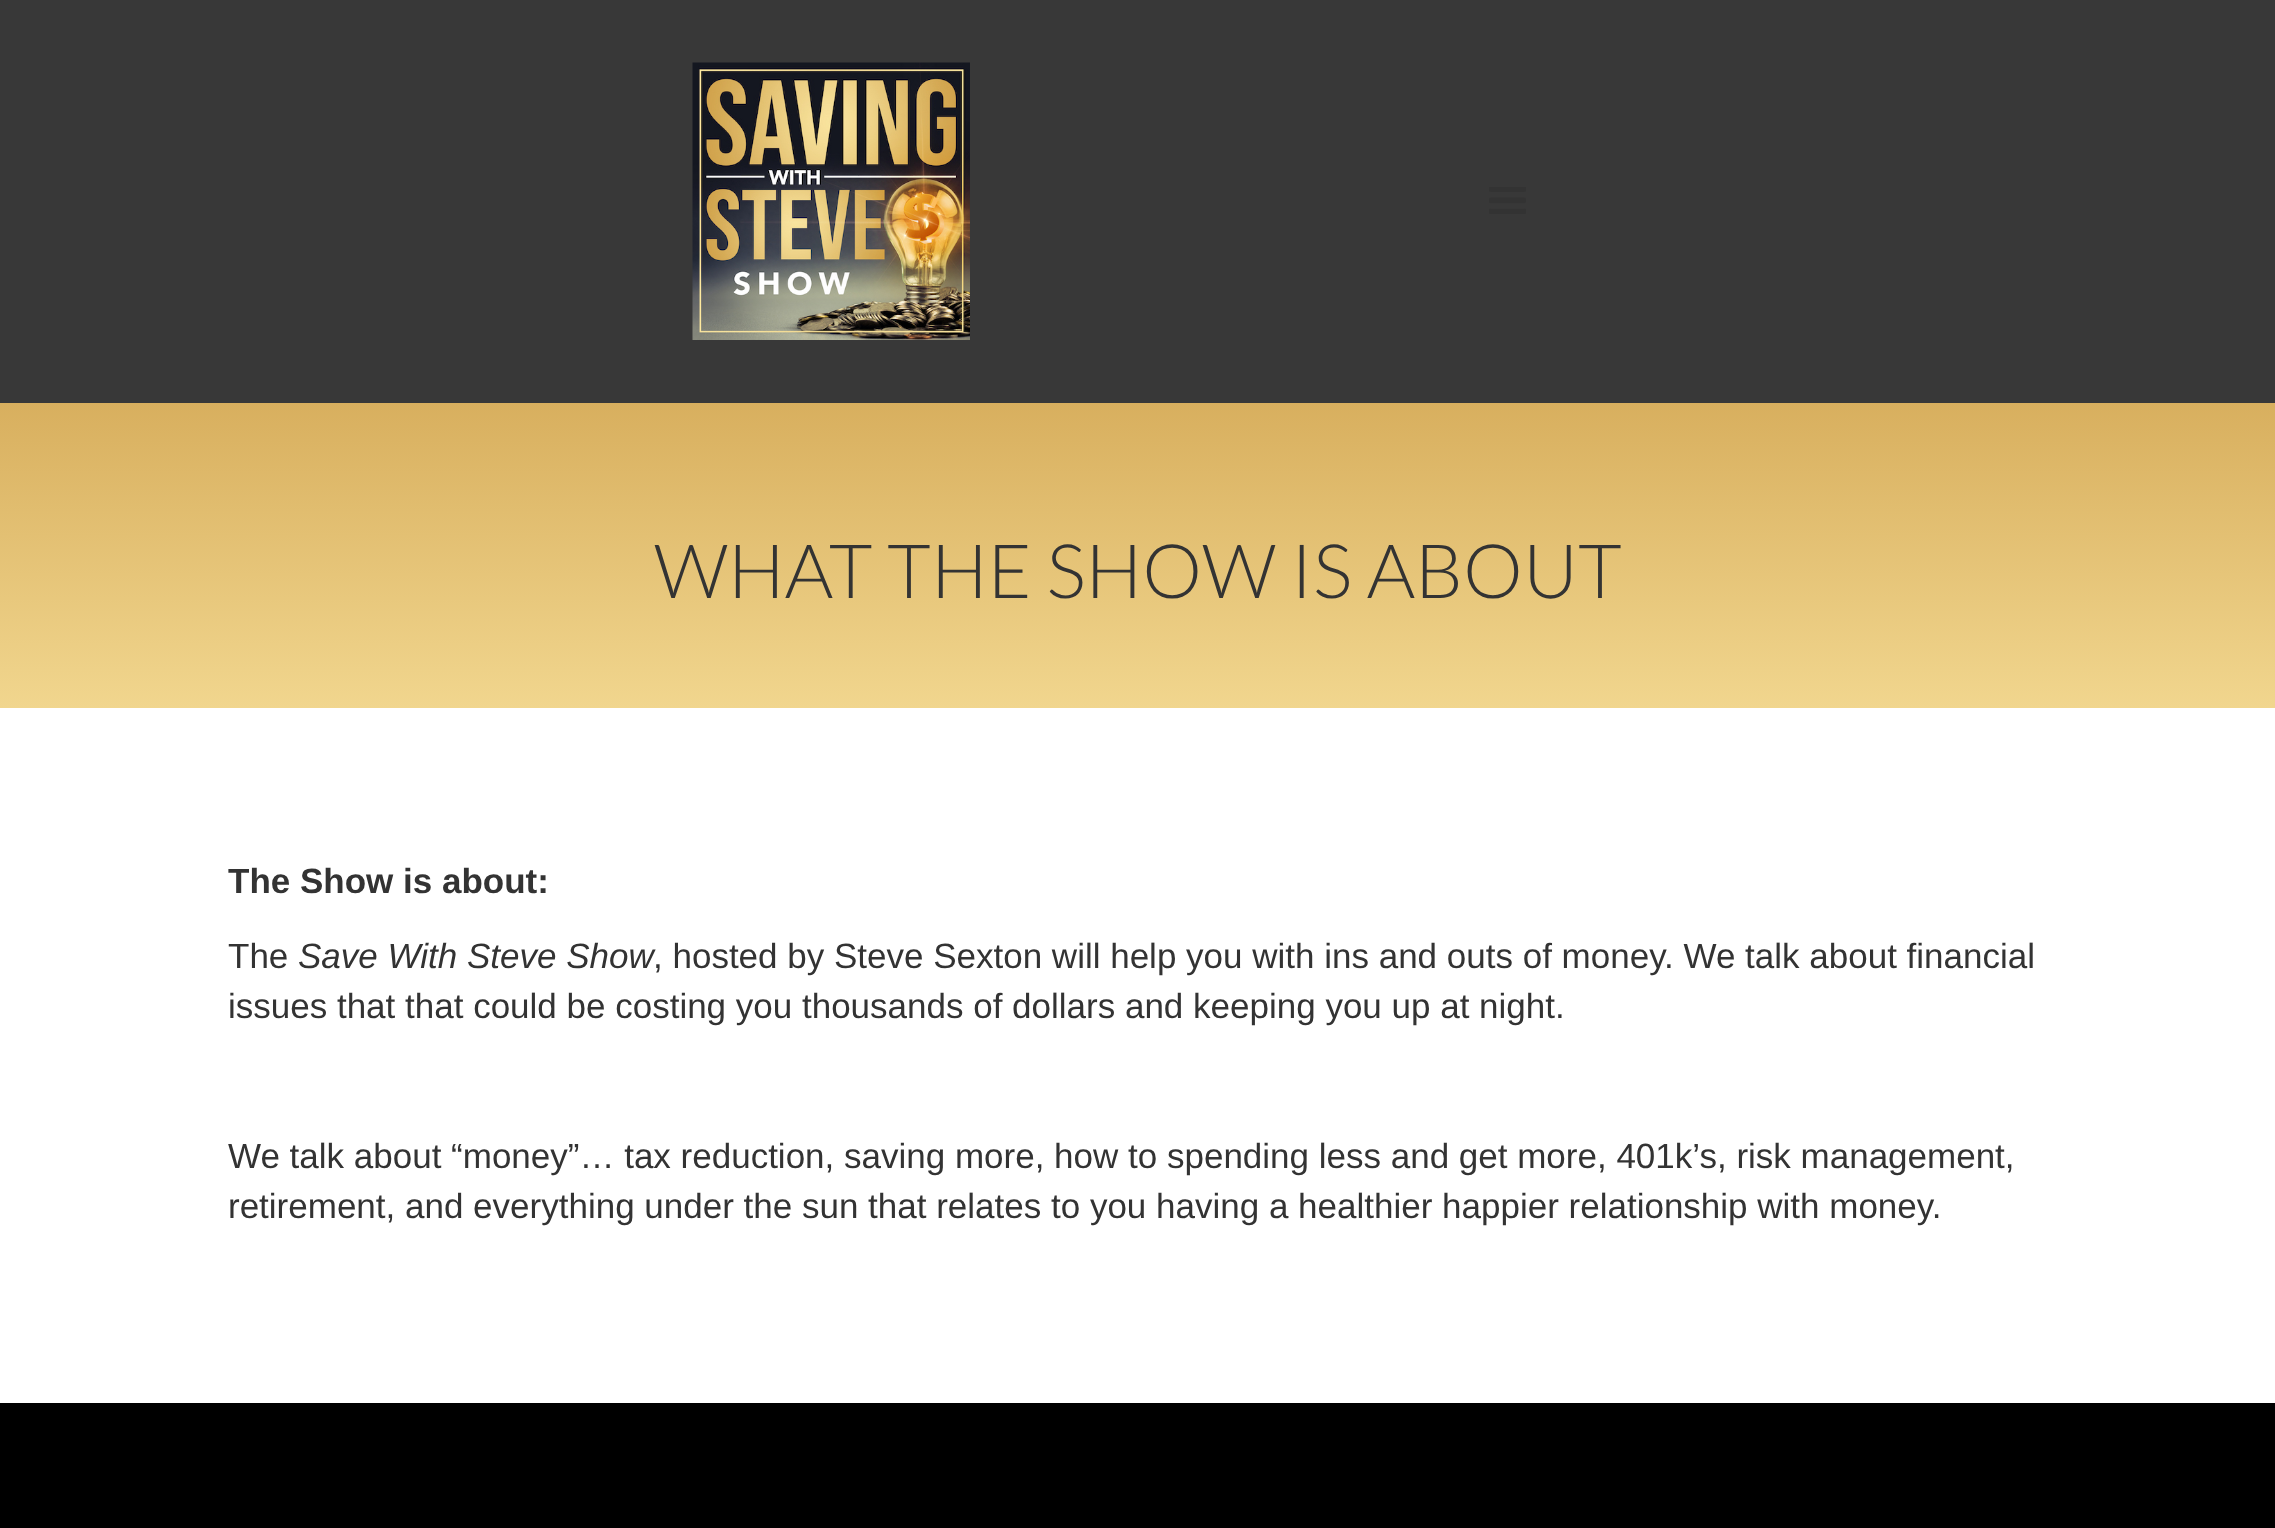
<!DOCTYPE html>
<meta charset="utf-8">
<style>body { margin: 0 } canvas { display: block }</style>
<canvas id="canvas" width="2275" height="1528"></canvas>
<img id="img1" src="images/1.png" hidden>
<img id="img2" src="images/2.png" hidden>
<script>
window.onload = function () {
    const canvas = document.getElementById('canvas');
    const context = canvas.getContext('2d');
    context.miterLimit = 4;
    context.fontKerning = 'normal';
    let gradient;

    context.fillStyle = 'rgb(255, 255, 255)';
    context.fillRect(0, 0, 2275, 1528);
    context.fillStyle = 'rgb(56, 56, 56)';
    context.fillRect(0, 0, 2275, 403);
    context.drawImage(document.getElementById('img1'), 692, 62, 278, 278);
    context.drawImage(document.getElementById('img2'), 1489, 187, 37, 27);
    gradient = context.createLinearGradient(1138, 402, 1138, 708);
    gradient.addColorStop(0, 'rgb(216, 175, 94)');
    gradient.addColorStop(1, 'rgb(241, 214, 142)');
    context.fillStyle = gradient;
    context.fillRect(0, 403, 2275, 305);
    context.fillStyle = 'rgb(0, 0, 0)';
    context.fillRect(0, 1403, 2275, 125);
    context.font = '300 75px Lato';
    context.fillStyle = 'rgb(51, 51, 51)';
    context.fillText('WHAT THE SHOW IS ABOUT', 654, 598);
    context.font = 'bold 35px Liberation Sans';
    context.fillText('The Show is about:', 228, 893);
    context.font = '35px Liberation Sans';
    context.fillText('The', 228, 968);
    context.font = 'italic 35px Liberation Sans';
    context.fillText('Save With Steve Show', 298, 968);
    context.font = '35px Liberation Sans';
    context.fillText(', hosted by Steve Sexton will help you with ins and outs of money. We talk about financial', 653, 968);
    context.fillText('issues that that could be costing you thousands of dollars and keeping you up at night.', 228, 1018);
    context.fillText('We talk about “money”… tax reduction, saving more, how to spending less and get more, 401k’s, risk management,', 228, 1168);
    context.fillText('retirement, and everything under the sun that relates to you having a healthier happier relationship with money.', 228, 1218);
};
</script>
